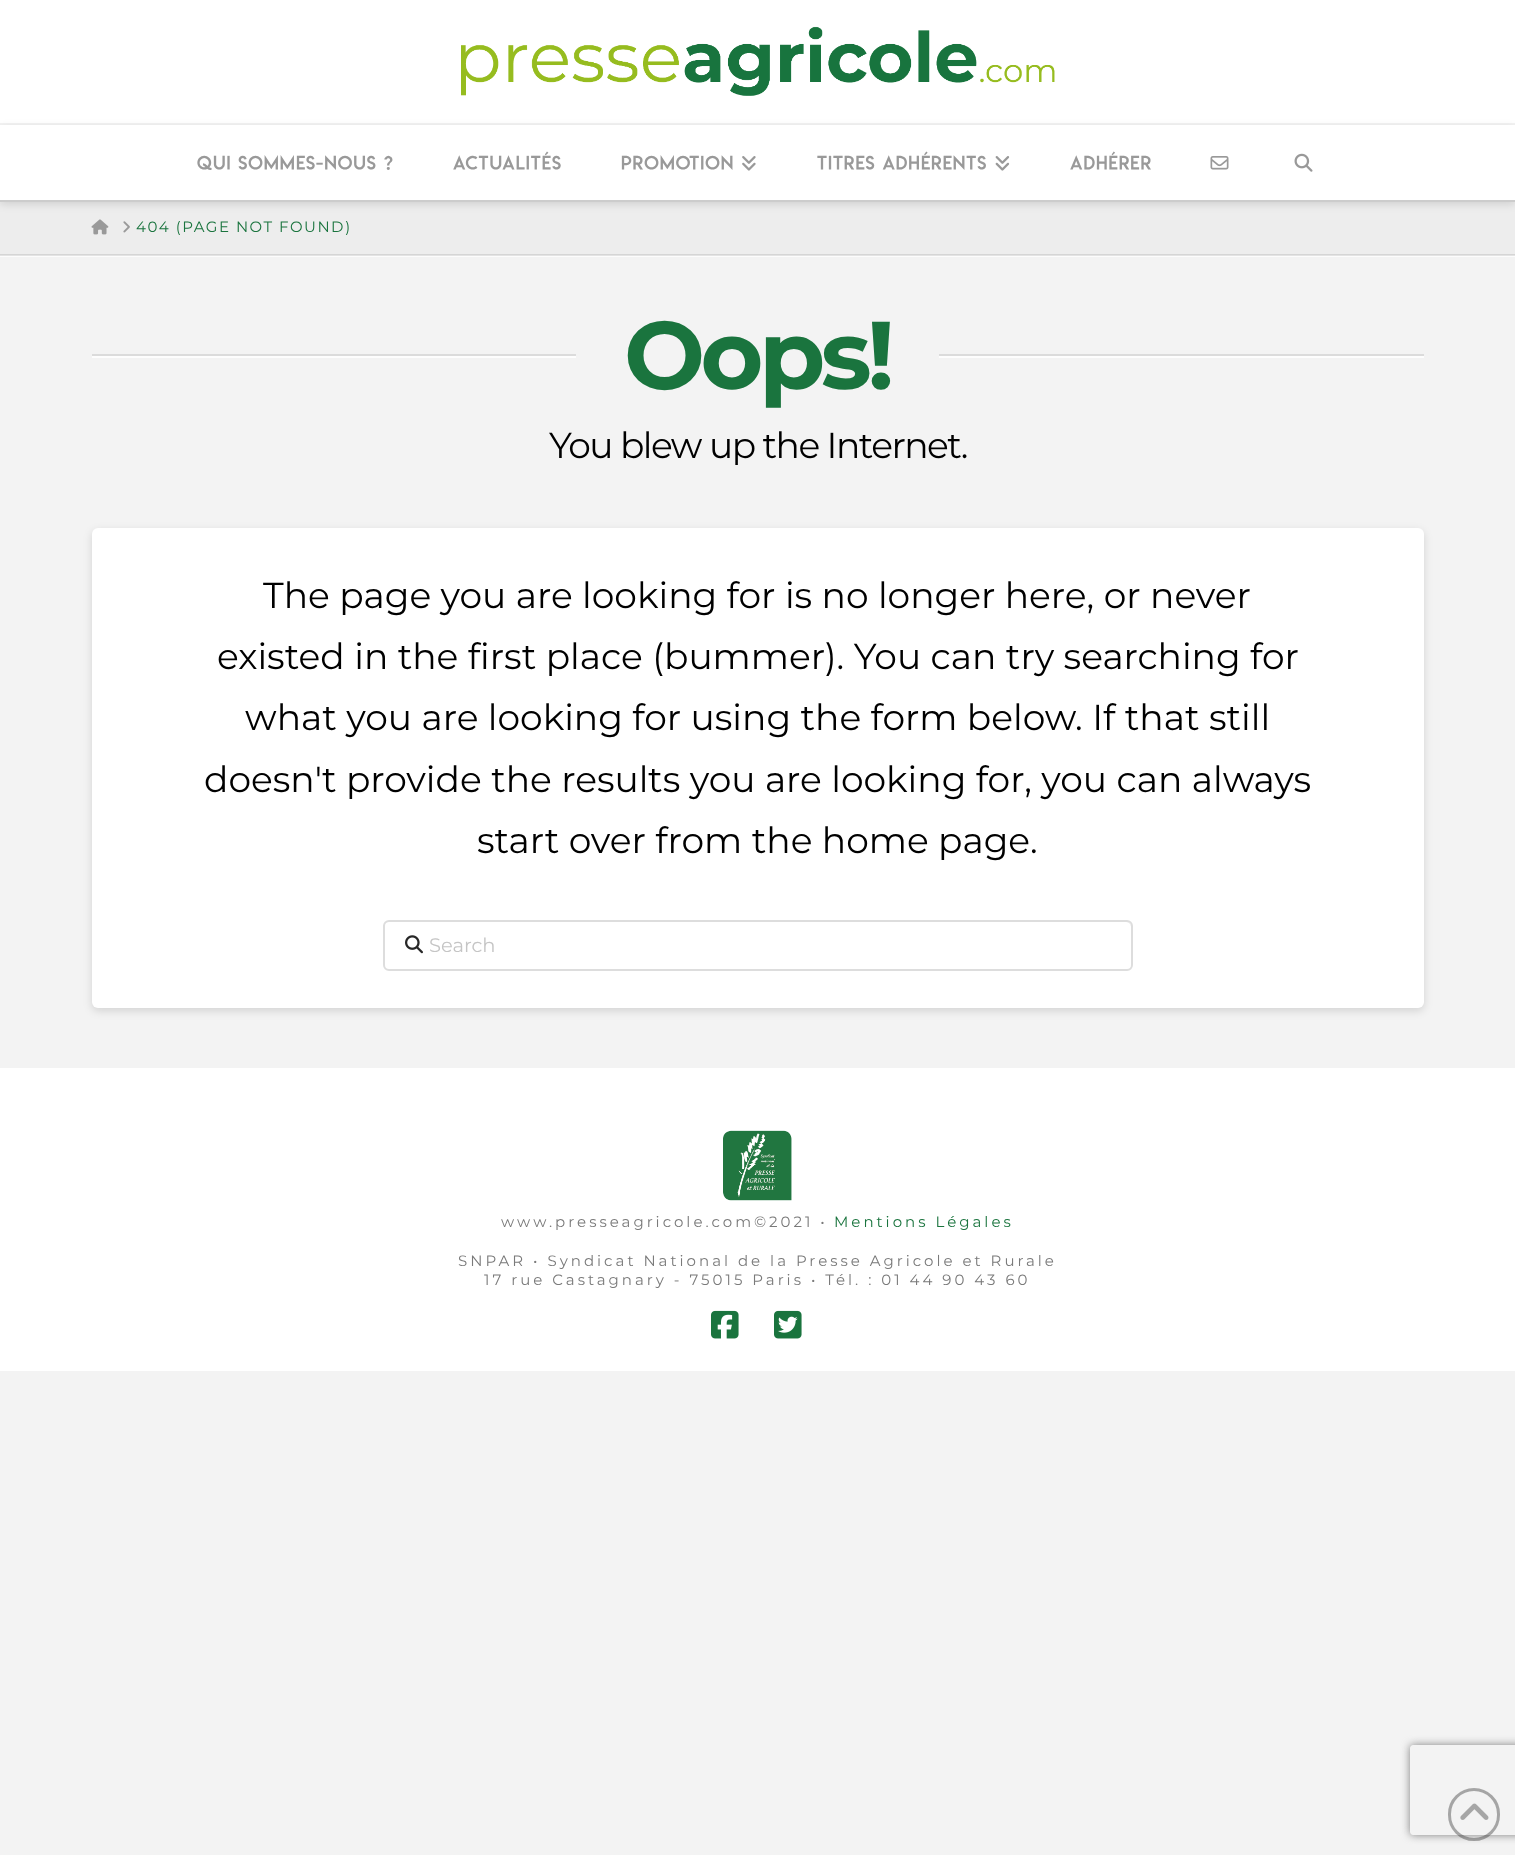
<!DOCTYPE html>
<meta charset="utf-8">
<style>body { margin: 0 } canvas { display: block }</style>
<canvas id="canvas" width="1515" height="1855"></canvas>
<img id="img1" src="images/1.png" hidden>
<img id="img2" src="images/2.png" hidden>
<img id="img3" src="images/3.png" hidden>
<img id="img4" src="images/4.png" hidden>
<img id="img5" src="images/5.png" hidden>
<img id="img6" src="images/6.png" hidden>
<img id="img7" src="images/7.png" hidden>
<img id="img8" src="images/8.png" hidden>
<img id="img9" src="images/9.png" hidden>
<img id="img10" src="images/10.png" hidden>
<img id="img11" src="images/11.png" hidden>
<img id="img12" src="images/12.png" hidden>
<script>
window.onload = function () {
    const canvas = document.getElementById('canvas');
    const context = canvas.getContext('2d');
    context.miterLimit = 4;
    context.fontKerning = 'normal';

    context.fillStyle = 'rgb(243, 243, 243)';
    context.fillRect(0, 0, 1515, 1855);
    context.fillStyle = 'rgb(255, 255, 255)';
    context.fillRect(0, 0, 1515, 123);
    context.drawImage(document.getElementById('img1'), 461, 26, 594, 70);
    context.fillStyle = 'rgb(237, 237, 237)';
    context.fillRect(0, 202, 1515, 52);
    context.fillStyle = 'rgba(0, 0, 0, 0.13)';
    context.filter = 'blur(4px)';
    context.beginPath();
    context.rect(0, 128, 1515, 76);
    context.fill();
    context.filter = 'none';
    context.fillStyle = 'rgb(255, 255, 255)';
    context.fillRect(0, 125, 1515, 75);
    context.fillStyle = 'rgb(204, 204, 204)';
    context.fillRect(0, 200, 1515, 2);
    context.drawImage(document.getElementById('img2'), 742, 156, 14, 15);
    context.drawImage(document.getElementById('img3'), 995, 156, 15, 15);
    context.drawImage(document.getElementById('img4'), 1210, 156, 19, 14);
    context.drawImage(document.getElementById('img5'), 1294, 153, 19, 19);
    context.fillStyle = 'rgb(252, 252, 252)';
    context.fillRect(0, 256, 1515, 1);
    context.fillStyle = 'rgb(227, 227, 227)';
    context.fillRect(0, 255, 1515, 1);
    context.fillStyle = 'rgb(213, 213, 213)';
    context.fillRect(0, 254, 1515, 1);
    context.drawImage(document.getElementById('img6'), 91, 219, 18, 16);
    context.drawImage(document.getElementById('img7'), 123, 221, 7, 12);
    context.fillStyle = 'rgb(253, 253, 253)';
    context.fillRect(92, 356, 484, 2);
    context.fillStyle = 'rgb(219, 219, 219)';
    context.fillRect(92, 354, 484, 2);
    context.fillStyle = 'rgb(253, 253, 253)';
    context.fillRect(939, 356, 485, 2);
    context.fillStyle = 'rgb(219, 219, 219)';
    context.fillRect(939, 354, 485, 2);
    context.fillStyle = 'rgba(0, 0, 0, 0.13)';
    context.filter = 'blur(4px)';
    context.beginPath();
    context.roundRect(92, 531, 1332, 480, 6);
    context.fill();
    context.filter = 'none';
    context.fillStyle = 'rgb(255, 255, 255)';
    context.beginPath();
    context.roundRect(92, 528, 1332, 480, 6);
    context.fill();
    context.fillStyle = 'rgb(236, 236, 236)';
    context.beginPath();
    context.moveTo(388, 922);
    context.lineTo(1126, 922);
    context.bezierCurveTo(1129, 922, 1131, 925, 1131, 927);
    context.lineTo(1131, 926);
    context.bezierCurveTo(1131, 923, 1129, 921, 1126, 921);
    context.lineTo(389, 921);
    context.bezierCurveTo(386, 921, 384, 923, 384, 926);
    context.lineTo(384, 927);
    context.bezierCurveTo(384, 925, 386, 922, 388, 922);
    context.closePath();
    context.fill();
    context.beginPath();
    context.roundRect(384, 921, 748, 49, 5);
    context.strokeStyle = 'rgb(221, 221, 221)';
    context.lineWidth = 2;
    context.stroke();
    context.drawImage(document.getElementById('img8'), 405, 935, 18, 19);
    context.fillStyle = 'rgb(255, 255, 255)';
    context.fillRect(0, 1068, 1515, 303);
    context.drawImage(document.getElementById('img9'), 723, 1130, 69, 71);
    context.drawImage(document.getElementById('img10'), 711, 1310, 28, 29);
    context.drawImage(document.getElementById('img11'), 774, 1310, 28, 29);
    context.save();
    context.beginPath();
    context.moveTo(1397, 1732);
    context.lineTo(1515, 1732);
    context.lineTo(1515, 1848);
    context.lineTo(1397, 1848);
    context.closePath();
    context.moveTo(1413, 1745);
    context.lineTo(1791, 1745);
    context.bezierCurveTo(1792.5, 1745, 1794, 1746.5, 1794, 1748);
    context.lineTo(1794, 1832);
    context.bezierCurveTo(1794, 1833.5, 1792.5, 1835, 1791, 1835);
    context.lineTo(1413, 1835);
    context.bezierCurveTo(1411.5, 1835, 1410, 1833.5, 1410, 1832);
    context.lineTo(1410, 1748);
    context.bezierCurveTo(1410, 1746.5, 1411.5, 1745, 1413, 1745);
    context.closePath();
    context.clip('evenodd');
    context.fillStyle = 'rgb(128, 128, 128)';
    context.filter = 'blur(4px)';
    context.beginPath();
    context.roundRect(1410, 1745, 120, 90, 3);
    context.fill();
    context.filter = 'none';
    context.restore();
    context.beginPath();
    context.roundRect(1449.5, 1789.5, 49, 50, 24.5);
    context.strokeStyle = 'rgba(39, 39, 39, 0.38)';
    context.lineWidth = 3;
    context.stroke();
    context.drawImage(document.getElementById('img12'), 1460, 1803, 29, 17);
    context.letterSpacing = '1.5px';
    context.font = 'bold 18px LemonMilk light';
    context.fillStyle = 'rgb(153, 153, 153)';
    context.fillText('QUI SOMMES-NOUS ?', 197, 170);
    context.fillText('ACTUALITÉS', 453, 170);
    context.fillText('PROMOTION', 621, 170);
    context.fillText('TITRES ADHÉRENTS', 817, 170);
    context.fillText('ADHÉRER', 1070, 170);
    context.font = '15px Montserrat';
    context.fillStyle = 'rgb(26, 116, 62)';
    context.fillText('404 (PAGE NOT FOUND)', 136, 232);
    context.letterSpacing = '-4.5px';
    context.font = 'bold 96px Montserrat';
    context.fillText('Oops!', 624, 389);
    context.letterSpacing = '-1.5px';
    context.font = '36px Montserrat';
    context.fillStyle = 'rgb(0, 0, 0)';
    context.fillText('You blew up the Internet.', 549, 458);
    context.letterSpacing = '0px';
    context.fillText('The page you are looking for is no longer here, or never', 263, 608);
    context.fillText('existed in the first place (bummer). You can try searching for', 217, 669);
    context.fillText('what you are looking for using the form below. If that still', 245, 730);
    context.fillText('doesn\'t provide the results you are looking for, you can always', 204, 792);
    context.fillText('start over from the home page.', 477, 853);
    context.font = '19.5px Montserrat';
    context.fillStyle = 'rgb(197, 197, 197)';
    context.fillText('Search', 429, 952);
    context.letterSpacing = '3px';
    context.font = '15px Montserrat';
    context.fillStyle = 'rgb(122, 122, 122)';
    context.fillText('www.presseagricole.com©2021 •', 501, 1227);
    context.fillStyle = 'rgb(26, 116, 62)';
    context.fillText('Mentions Légales', 834, 1227);
    context.fillStyle = 'rgb(122, 122, 122)';
    context.fillText('SNPAR • Syndicat National de la Presse Agricole et Rurale', 458, 1266);
    context.fillText('17 rue Castagnary - 75015 Paris • Tél. : 01 44 90 43 60', 484, 1285);
};
</script>
